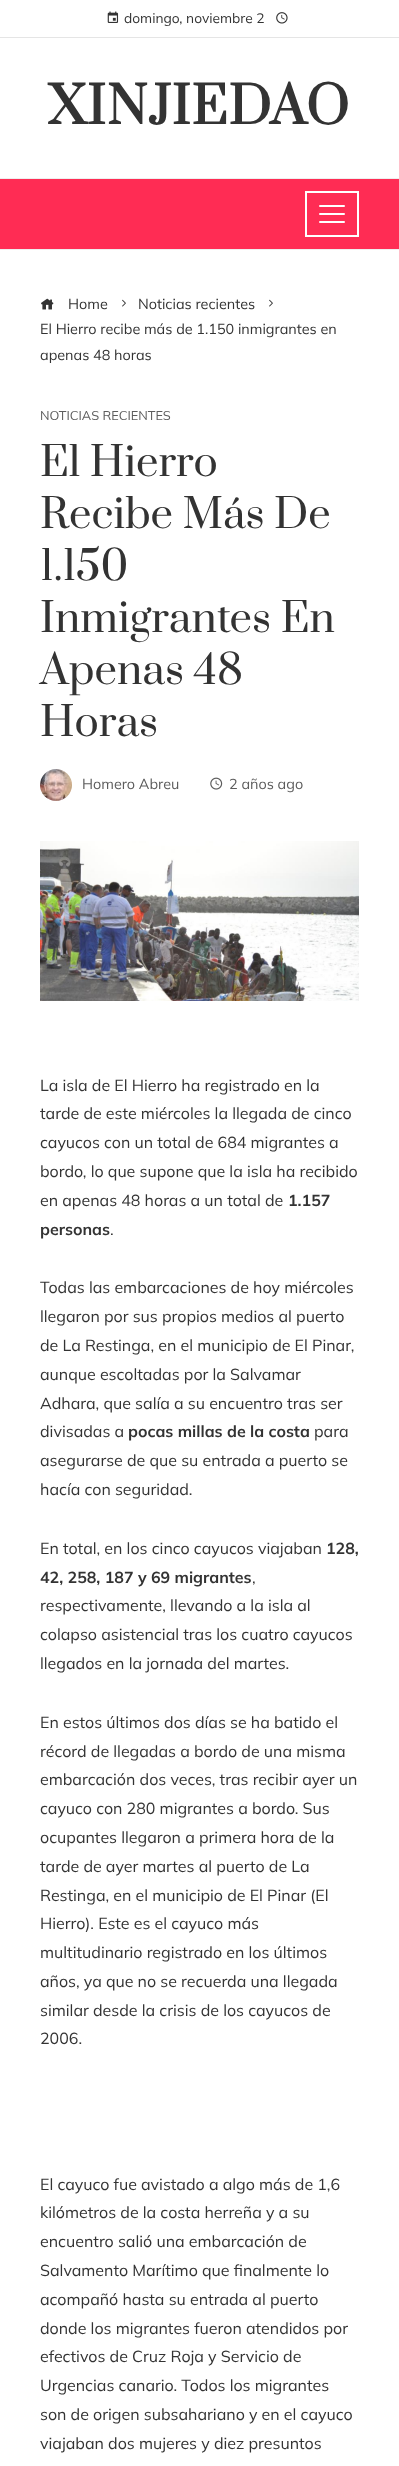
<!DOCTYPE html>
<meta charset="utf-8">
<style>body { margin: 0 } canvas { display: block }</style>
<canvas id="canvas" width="399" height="2466"></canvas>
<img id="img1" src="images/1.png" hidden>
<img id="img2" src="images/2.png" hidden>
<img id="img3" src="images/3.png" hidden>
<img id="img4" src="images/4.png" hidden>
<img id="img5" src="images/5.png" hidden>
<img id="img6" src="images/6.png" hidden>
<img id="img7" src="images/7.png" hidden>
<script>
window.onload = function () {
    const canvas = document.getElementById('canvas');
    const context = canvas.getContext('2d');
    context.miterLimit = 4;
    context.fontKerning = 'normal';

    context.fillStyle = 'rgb(255, 255, 255)';
    context.fillRect(0, 0, 399, 2466);
    context.fillStyle = 'rgb(229, 229, 229)';
    context.fillRect(0, 37, 399, 1);
    context.drawImage(document.getElementById('img1'), 107, 11, 12, 12);
    context.drawImage(document.getElementById('img2'), 276, 12, 12, 12);
    context.fillStyle = 'rgb(255, 44, 84)';
    context.fillRect(0, 179, 399, 70);
    context.fillStyle = 'rgb(238, 238, 238)';
    context.fillRect(0, 178, 399, 1);
    context.fillRect(0, 249, 399, 1);
    context.strokeStyle = 'rgb(255, 255, 255)';
    context.lineWidth = 2;
    context.strokeRect(306, 192, 52, 44);
    context.fillStyle = 'rgb(255, 255, 255)';
    context.beginPath();
    context.roundRect(319, 205, 26, 2, 1);
    context.fill();
    context.beginPath();
    context.roundRect(319, 213, 26, 2, 1);
    context.fill();
    context.beginPath();
    context.roundRect(319, 221, 26, 2, 1);
    context.fill();
    context.drawImage(document.getElementById('img3'), 41, 298, 13, 12);
    context.drawImage(document.getElementById('img4'), 122, 299, 4, 8);
    context.drawImage(document.getElementById('img4'), 269, 299, 4, 8);
    context.drawImage(document.getElementById('img5'), 40, 769, 32, 32);
    context.drawImage(document.getElementById('img6'), 210, 777, 13, 13);
    context.drawImage(document.getElementById('img7'), 40, 841, 319, 160);
    context.font = '13.75px Mulish';
    context.fillStyle = 'rgb(51, 51, 51)';
    context.fillText('domingo, noviembre 2', 124, 23);
    context.letterSpacing = '1px';
    context.font = 'bold 50px Prata';
    context.fillText('XINJIEDAO', 48, 124);
    context.letterSpacing = '0px';
    context.font = '14.4px Mulish';
    context.fillText('Home', 68, 309);
    context.fillText('Noticias recientes', 138, 309);
    context.fillText('El Hierro recibe más de 1.150 inmigrantes en', 40, 334);
    context.fillText('apenas 48 horas', 40, 360);
    context.font = '12.75px Mulish';
    context.fillStyle = 'rgb(92, 92, 92)';
    context.fillText('NOTICIAS RECIENTES', 40, 420);
    context.font = '40px Prata';
    context.fillStyle = 'rgb(51, 51, 51)';
    context.fillText('El Hierro', 40, 476);
    context.fillText('Recibe Más De', 40, 528);
    context.fillText('1.150', 40, 580);
    context.fillText('Inmigrantes En', 40, 632);
    context.fillText('Apenas 48', 40, 684);
    context.fillText('Horas', 40, 736);
    context.font = '14.4px Mulish';
    context.fillStyle = 'rgb(92, 92, 92)';
    context.fillText('Homero Abreu', 82, 789);
    context.fillText('2 años ago', 229, 789);
    context.font = '16px Mulish';
    context.fillStyle = 'rgb(51, 51, 51)';
    context.fillText('La isla de El Hierro ha registrado en la', 40, 1091);
    context.fillText('tarde de este miércoles la llegada de cinco', 40, 1119);
    context.fillText('cayucos con un total de 684 migrantes a', 40, 1148);
    context.fillText('bordo, lo que supone que la isla ha recibido', 40, 1177);
    context.fillText('en apenas 48 horas a un total de', 40, 1206);
    context.font = 'bold 16px Mulish';
    context.fillText('1.157', 288, 1206);
    context.fillText('personas', 40, 1235);
    context.font = '16px Mulish';
    context.fillText('.', 110, 1235);
    context.fillText('Todas las embarcaciones de hoy miércoles', 40, 1293);
    context.fillText('llegaron por sus propios medios al puerto', 40, 1322);
    context.fillText('de La Restinga, en el municipio de El Pinar,', 40, 1351);
    context.fillText('aunque escoltadas por la Salvamar', 40, 1380);
    context.fillText('Adhara, que salía a su encuentro tras ser', 40, 1409);
    context.fillText('divisadas a', 40, 1437);
    context.font = 'bold 16px Mulish';
    context.fillText('pocas millas de la costa', 128, 1437);
    context.font = '16px Mulish';
    context.fillText('para', 314, 1437);
    context.fillText('asegurarse de que su entrada a puerto se', 40, 1466);
    context.fillText('hacía con seguridad.', 40, 1495);
    context.fillText('En total, en los cinco cayucos viajaban', 40, 1554);
    context.font = 'bold 16px Mulish';
    context.fillText('128,', 326, 1554);
    context.fillText('42, 258, 187 y 69 migrantes', 40, 1583);
    context.font = '16px Mulish';
    context.fillText(',', 252, 1583);
    context.fillText('respectivamente, llevando a la isla al', 40, 1611);
    context.fillText('colapso asistencial tras los cuatro cayucos', 40, 1640);
    context.fillText('llegados en la jornada del martes.', 40, 1669);
    context.fillText('En estos últimos dos días se ha batido el', 40, 1728);
    context.fillText('récord de llegadas a bordo de una misma', 40, 1757);
    context.fillText('embarcación dos veces, tras recibir ayer un', 40, 1785);
    context.fillText('cayuco con 280 migrantes a bordo. Sus', 40, 1814);
    context.fillText('ocupantes llegaron a primera hora de la', 40, 1843);
    context.fillText('tarde de ayer martes al puerto de La', 40, 1872);
    context.fillText('Restinga, en el municipio de El Pinar (El', 40, 1901);
    context.fillText('Hierro). Este es el cayuco más', 40, 1929);
    context.fillText('multitudinario registrado en los últimos', 40, 1958);
    context.fillText('años, ya que no se recuerda una llegada', 40, 1987);
    context.fillText('similar desde la crisis de los cayucos de', 40, 2016);
    context.fillText('2006.', 40, 2044);
    context.fillText('El cayuco fue avistado a algo más de 1,6', 40, 2190);
    context.fillText('kilómetros de la costa herreña y a su', 40, 2218);
    context.fillText('encuentro salió una embarcación de', 40, 2247);
    context.fillText('Salvamento Marítimo que finalmente lo', 40, 2276);
    context.fillText('acompañó hasta su entrada al puerto', 40, 2305);
    context.fillText('donde los migrantes fueron atendidos por', 40, 2334);
    context.fillText('efectivos de Cruz Roja y Servicio de', 40, 2362);
    context.fillText('Urgencias canario. Todos los migrantes', 40, 2391);
    context.fillText('son de origen subsahariano y en el cayuco', 40, 2420);
    context.fillText('viajaban dos mujeres y diez presuntos', 40, 2449);
};
</script>
